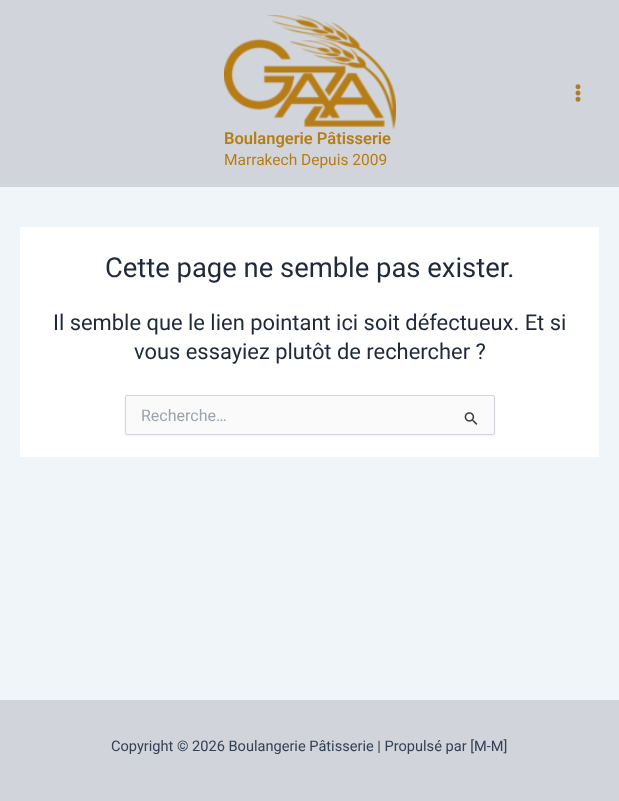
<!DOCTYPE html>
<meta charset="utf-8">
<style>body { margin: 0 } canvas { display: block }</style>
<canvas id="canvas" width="619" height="801"></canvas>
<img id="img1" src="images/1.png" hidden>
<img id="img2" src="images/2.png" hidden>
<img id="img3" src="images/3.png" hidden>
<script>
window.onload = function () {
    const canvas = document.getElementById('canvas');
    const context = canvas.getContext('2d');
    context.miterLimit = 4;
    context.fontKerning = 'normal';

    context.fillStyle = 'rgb(240, 245, 250)';
    context.fillRect(0, 0, 619, 801);
    context.fillStyle = 'rgb(209, 213, 219)';
    context.fillRect(0, 0, 619, 187);
    context.drawImage(document.getElementById('img1'), 575, 84, 6, 18);
    context.drawImage(document.getElementById('img2'), 224, 15, 172, 114);
    context.fillStyle = 'rgb(255, 255, 255)';
    context.fillRect(20, 227, 579, 230);
    context.fillStyle = 'rgba(0, 0, 0, 0.05)';
    context.filter = 'blur(1px)';
    context.beginPath();
    context.roundRect(125, 396, 370, 40, 2);
    context.fill();
    context.filter = 'none';
    context.fillStyle = 'rgb(250, 250, 250)';
    context.beginPath();
    context.roundRect(125.5, 395.5, 369, 39, 1.5);
    context.fill();
    context.strokeStyle = 'rgb(209, 213, 219)';
    context.stroke();
    context.drawImage(document.getElementById('img3'), 464, 412, 14, 13);
    context.fillStyle = 'rgb(209, 213, 219)';
    context.fillRect(0, 700, 619, 101);
    context.font = '600 16.5px Roboto';
    context.fillStyle = 'rgb(182, 125, 20)';
    context.fillText('Boulangerie Pâtisserie', 224, 144);
    context.font = '15.5px Roboto';
    context.fillText('Marrakech Depuis 2009', 224, 165);
    context.font = '27.4px Roboto';
    context.fillStyle = 'rgb(30, 41, 59)';
    context.fillText('Cette page ne semble pas exister.', 105, 277);
    context.font = '21.9px Roboto';
    context.fillText('Il semble que le lien pointant ici soit défectueux. Et si', 53, 330);
    context.fillText('vous essayiez plutôt de rechercher ?', 134, 359);
    context.font = '16px Roboto';
    context.fillStyle = 'rgb(156, 163, 175)';
    context.fillText('Recherche…', 141, 421);
    context.font = '14.6px Roboto';
    context.fillStyle = 'rgb(51, 65, 85)';
    context.fillText('Copyright © 2026 Boulangerie Pâtisserie | Propulsé par [M-M]', 111, 751);
};
</script>
